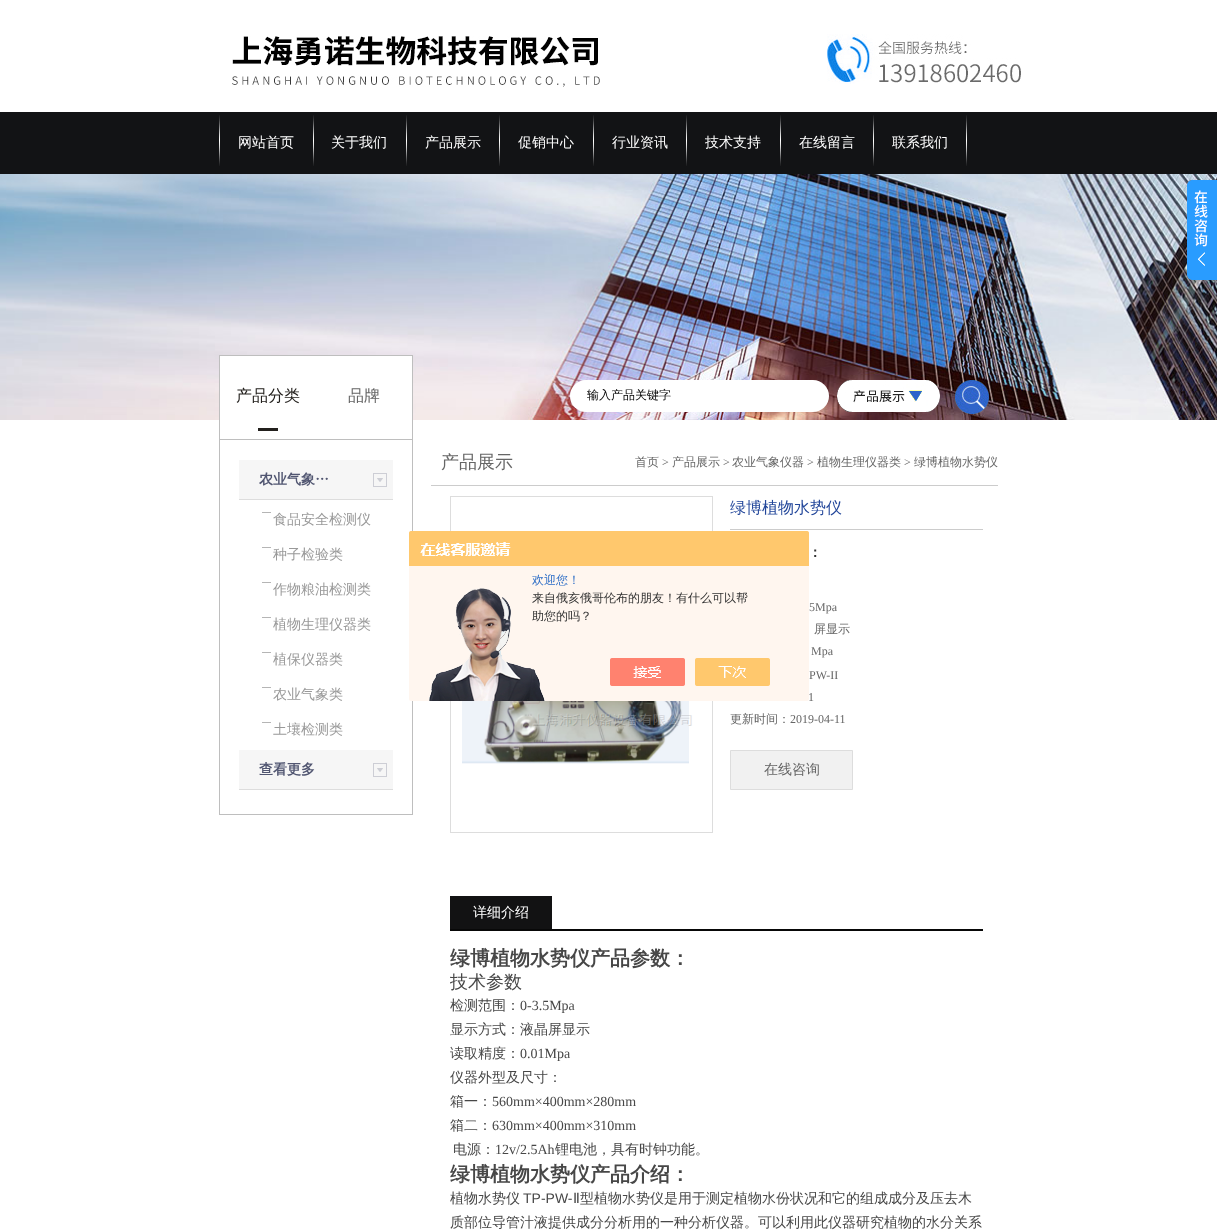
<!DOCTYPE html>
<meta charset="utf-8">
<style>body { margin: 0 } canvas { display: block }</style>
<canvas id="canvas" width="1217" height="1232"></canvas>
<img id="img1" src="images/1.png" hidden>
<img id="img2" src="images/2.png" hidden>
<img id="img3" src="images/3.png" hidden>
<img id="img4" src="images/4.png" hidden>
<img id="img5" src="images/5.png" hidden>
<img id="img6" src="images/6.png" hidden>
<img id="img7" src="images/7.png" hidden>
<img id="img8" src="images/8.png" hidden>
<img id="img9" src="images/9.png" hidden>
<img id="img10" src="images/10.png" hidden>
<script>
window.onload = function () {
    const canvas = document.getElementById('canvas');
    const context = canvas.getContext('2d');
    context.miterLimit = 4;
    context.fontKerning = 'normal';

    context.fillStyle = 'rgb(255, 255, 255)';
    context.fillRect(0, 0, 1217, 1232);
    context.drawImage(document.getElementById('img1'), 232, 36, 368, 51);
    context.drawImage(document.getElementById('img2'), 827, 34, 194, 50);
    context.fillStyle = 'rgb(18, 19, 21)';
    context.fillRect(0, 112, 1217, 62);
    context.drawImage(document.getElementById('img3'), 219, 115, 1, 51);
    context.drawImage(document.getElementById('img3'), 313, 115, 1, 51);
    context.drawImage(document.getElementById('img3'), 406, 115, 1, 51);
    context.drawImage(document.getElementById('img3'), 499, 115, 1, 51);
    context.drawImage(document.getElementById('img3'), 593, 115, 1, 51);
    context.drawImage(document.getElementById('img3'), 686, 115, 1, 51);
    context.drawImage(document.getElementById('img3'), 780, 115, 1, 51);
    context.drawImage(document.getElementById('img3'), 873, 115, 1, 51);
    context.drawImage(document.getElementById('img3'), 966, 115, 1, 51);
    context.drawImage(document.getElementById('img4'), 0, 174, 1217, 246);
    context.drawImage(document.getElementById('img5'), 1187, 180, 30, 100);
    context.fillStyle = 'rgb(255, 255, 255)';
    context.fillRect(220, 356, 192, 64);
    context.strokeStyle = 'rgb(190, 190, 190)';
    context.strokeRect(219.5, 355.5, 193, 84);
    context.fillStyle = 'rgb(35, 32, 29)';
    context.fillRect(258, 428, 20, 3);
    context.fillStyle = 'rgb(255, 255, 255)';
    context.beginPath();
    context.roundRect(570, 380, 259, 32, 16);
    context.fill();
    context.drawImage(document.getElementById('img6'), 837, 380, 103, 32);
    context.drawImage(document.getElementById('img7'), 955, 380, 34, 34);
    context.fillStyle = 'rgb(190, 190, 190)';
    context.fillRect(412, 440, 1, 375);
    context.fillRect(219, 814, 194, 1);
    context.fillRect(219, 440, 1, 375);
    context.fillStyle = 'rgb(246, 246, 246)';
    context.fillRect(239, 460, 154, 39);
    context.fillStyle = 'rgb(221, 221, 221)';
    context.fillRect(239, 499, 154, 1);
    context.drawImage(document.getElementById('img8'), 373, 473, 14, 14);
    context.fillStyle = 'rgb(181, 181, 181)';
    context.fillRect(262, 512, 9, 1);
    context.fillRect(262, 547, 9, 1);
    context.fillRect(262, 582, 9, 1);
    context.fillRect(262, 617, 9, 1);
    context.fillRect(262, 652, 9, 1);
    context.fillRect(262, 687, 9, 1);
    context.fillRect(262, 722, 9, 1);
    context.fillStyle = 'rgb(246, 246, 246)';
    context.fillRect(239, 750, 154, 39);
    context.fillStyle = 'rgb(221, 221, 221)';
    context.fillRect(239, 789, 154, 1);
    context.drawImage(document.getElementById('img8'), 373, 763, 14, 14);
    context.fillStyle = 'rgb(204, 204, 204)';
    context.fillRect(431, 485, 567, 1);
    context.strokeStyle = 'rgb(221, 221, 221)';
    context.strokeRect(450.5, 496.5, 262, 336);
    context.drawImage(document.getElementById('img9'), 462, 701, 231, 63);
    context.fillRect(730, 529, 253, 1);
    context.fillStyle = 'rgb(241, 241, 241)';
    context.beginPath();
    context.rect(730.5, 750.5, 122, 39);
    context.fill();
    context.stroke();
    context.fillStyle = 'rgb(8, 8, 8)';
    context.fillRect(450, 929, 533, 2);
    context.fillStyle = 'rgb(18, 18, 19)';
    context.fillRect(450, 896, 102, 33);
    context.font = '500 14px WenQuanYi Zen Hei';
    context.fillStyle = 'rgb(255, 255, 255)';
    context.fillText('网站首页', 238, 147);
    context.fillText('关于我们', 331, 147);
    context.fillText('产品展示', 425, 147);
    context.fillText('促销中心', 518, 147);
    context.fillText('行业资讯', 612, 147);
    context.fillText('技术支持', 705, 147);
    context.fillText('在线留言', 799, 147);
    context.fillText('联系我们', 892, 147);
    context.font = '500 16px WenQuanYi Zen Hei';
    context.fillStyle = 'rgb(35, 32, 29)';
    context.fillText('产品分类', 236, 401);
    context.fillStyle = 'rgb(102, 102, 102)';
    context.fillText('品牌', 348, 401);
    context.font = '500 12px WenQuanYi Zen Hei';
    context.fillStyle = 'rgb(0, 0, 0)';
    context.fillText('输入产品关键字', 587, 399);
    context.font = 'bold 14px WenQuanYi Zen Hei';
    context.fillStyle = 'rgb(81, 86, 113)';
    context.fillText('农业气象…', 259, 484);
    context.font = '500 14px WenQuanYi Zen Hei';
    context.fillStyle = 'rgb(153, 153, 153)';
    context.fillText('食品安全检测仪', 273, 524);
    context.fillText('种子检验类', 273, 559);
    context.fillText('作物粮油检测类', 273, 594);
    context.fillText('植物生理仪器类', 273, 629);
    context.fillText('植保仪器类', 273, 664);
    context.fillText('农业气象类', 273, 699);
    context.fillText('土壤检测类', 273, 734);
    context.font = 'bold 14px WenQuanYi Zen Hei';
    context.fillStyle = 'rgb(81, 86, 113)';
    context.fillText('查看更多', 259, 774);
    context.font = '500 18px WenQuanYi Zen Hei';
    context.fillStyle = 'rgb(102, 102, 102)';
    context.fillText('产品展示', 441, 468);
    context.font = '500 12px WenQuanYi Zen Hei';
    context.fillText('首页', 635, 466);
    context.font = '12px Liberation Serif';
    context.fillText('>', 662, 466);
    context.font = '500 12px WenQuanYi Zen Hei';
    context.fillText('产品展示', 672, 466);
    context.font = '12px Liberation Serif';
    context.fillText('>', 723, 466);
    context.font = '500 12px WenQuanYi Zen Hei';
    context.fillText('农业气象仪器', 732, 466);
    context.font = '12px Liberation Serif';
    context.fillText('>', 807, 466);
    context.font = '500 12px WenQuanYi Zen Hei';
    context.fillText('植物生理仪器类', 817, 466);
    context.font = '12px Liberation Serif';
    context.fillText('>', 904, 466);
    context.font = '500 12px WenQuanYi Zen Hei';
    context.fillText('绿博植物水势仪', 914, 466);
    context.font = '500 16px WenQuanYi Zen Hei';
    context.fillStyle = 'rgb(34, 70, 154)';
    context.fillText('绿博植物水势仪', 730, 513);
    context.font = 'bold 14px WenQuanYi Zen Hei';
    context.fillStyle = 'rgb(51, 51, 51)';
    context.fillText('：', 808, 557);
    context.font = '12px Liberation Serif';
    context.fillStyle = 'rgb(102, 102, 102)';
    context.fillText('5Mpa', 809, 611);
    context.font = '500 12px WenQuanYi Zen Hei';
    context.fillText('屏显示', 814, 633);
    context.font = '12px Liberation Serif';
    context.fillText('Mpa', 811, 655);
    context.fillText('PW-II', 809, 679);
    context.fillText('1', 808, 701);
    context.font = '500 12px WenQuanYi Zen Hei';
    context.fillText('更新时间：', 730, 723);
    context.font = '12px Liberation Serif';
    context.fillText('2019-04-11', 790, 723);
    context.font = '500 14px WenQuanYi Zen Hei';
    context.fillText('在线咨询', 764, 774);
    context.fillStyle = 'rgb(255, 255, 255)';
    context.fillText('详细介绍', 473, 917);
    context.font = 'bold 20px WenQuanYi Zen Hei';
    context.fillStyle = 'rgb(71, 71, 71)';
    context.fillText('绿博植物水势仪产品参数：', 450, 965);
    context.font = '500 18px WenQuanYi Zen Hei';
    context.fillText('技术参数', 450, 988);
    context.font = '500 14px WenQuanYi Zen Hei';
    context.fillText('检测范围：', 450, 1010);
    context.font = '14px Liberation Serif';
    context.fillText('0-3.5Mpa', 520, 1010);
    context.font = '500 14px WenQuanYi Zen Hei';
    context.fillText('显示方式：液晶屏显示', 450, 1034);
    context.fillText('读取精度：', 450, 1058);
    context.font = '14px Liberation Serif';
    context.fillText('0.01Mpa', 520, 1058);
    context.font = '500 14px WenQuanYi Zen Hei';
    context.fillText('仪器外型及尺寸：', 450, 1082);
    context.fillText('箱一：', 450, 1106);
    context.font = '14px Liberation Serif';
    context.fillText('560mm×400mm×280mm', 492, 1106);
    context.font = '500 14px WenQuanYi Zen Hei';
    context.fillText('箱二：', 450, 1130);
    context.font = '14px Liberation Serif';
    context.fillText('630mm×400mm×310mm', 492, 1130);
    context.font = '500 14px WenQuanYi Zen Hei';
    context.fillText('电源：', 453, 1154);
    context.font = '14px Liberation Serif';
    context.fillText('12v/2.5Ah', 495, 1154);
    context.font = '500 14px WenQuanYi Zen Hei';
    context.fillText('锂电池，具有时钟功能。', 555, 1154);
    context.font = 'bold 20px WenQuanYi Zen Hei';
    context.fillText('绿博植物水势仪产品介绍：', 450, 1181);
    context.font = '500 14px WenQuanYi Zen Hei';
    context.fillText('植物水势仪', 450, 1203);
    context.font = '14px Liberation Sans';
    context.fillText('TP-PW-', 523, 1203);
    context.font = '14px DejaVu Sans';
    context.fillText('Ⅱ', 573, 1203);
    context.font = '500 14px WenQuanYi Zen Hei';
    context.fillText('型植物水势仪是用于测定植物水份状况和它的组成成分及压去木', 580, 1203);
    context.fillText('质部位导管汁液提供成分分析用的一种分析仪器。可以利用此仪器研究植物的水分关系', 450, 1227);
    context.drawImage(document.getElementById('img10'), 409, 531, 400, 170);
    context.font = '500 12px WenQuanYi Zen Hei';
    context.fillStyle = 'rgb(46, 110, 198)';
    context.fillText('欢迎您！', 532, 584);
    context.fillStyle = 'rgb(51, 51, 51)';
    context.fillText('来自俄亥俄哥伦布的朋友！有什么可以帮', 532, 602);
    context.fillText('助您的吗？', 532, 620);
};
</script>
